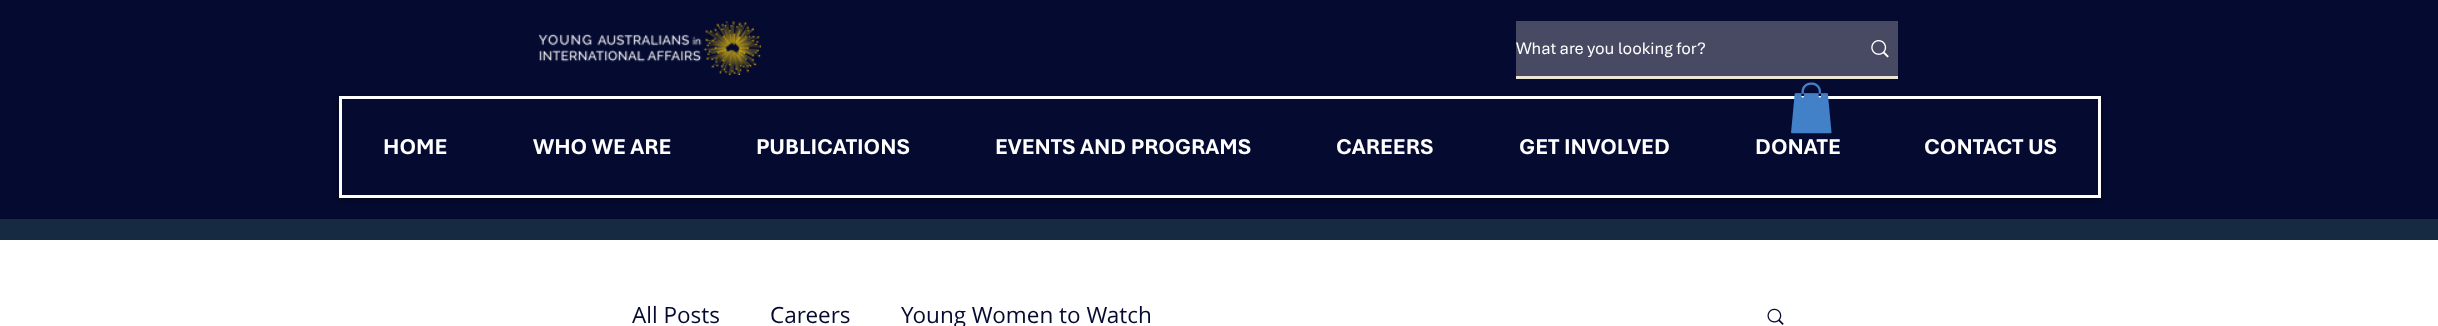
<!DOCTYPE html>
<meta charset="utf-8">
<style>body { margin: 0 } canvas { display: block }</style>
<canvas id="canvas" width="2438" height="326"></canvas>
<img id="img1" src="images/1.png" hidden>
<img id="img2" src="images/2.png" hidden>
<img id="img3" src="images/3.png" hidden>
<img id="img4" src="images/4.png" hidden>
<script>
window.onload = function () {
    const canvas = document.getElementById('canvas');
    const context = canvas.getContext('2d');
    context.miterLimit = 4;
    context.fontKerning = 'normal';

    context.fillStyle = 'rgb(255, 255, 255)';
    context.fillRect(0, 0, 2438, 326);
    context.fillStyle = 'rgb(5, 10, 48)';
    context.fillRect(0, 0, 2438, 219);
    context.drawImage(document.getElementById('img1'), 538, 21, 224, 54);
    context.fillStyle = 'rgb(235, 229, 214)';
    context.fillRect(1516, 76, 382, 3);
    context.fillStyle = 'rgb(71, 74, 98)';
    context.fillRect(1516, 21, 382, 55);
    context.drawImage(document.getElementById('img2'), 1871, 40, 18, 18);
    context.fillStyle = 'rgba(0, 0, 0, 0.6)';
    context.filter = 'blur(2.5px)';
    context.beginPath();
    context.rect(339, 98, 1762, 101);
    context.fill();
    context.filter = 'none';
    context.fillStyle = 'rgb(5, 10, 48)';
    context.beginPath();
    context.rect(340.5, 97.5, 1759, 99);
    context.fill();
    context.strokeStyle = 'rgb(255, 255, 255)';
    context.lineWidth = 3;
    context.stroke();
    context.drawImage(document.getElementById('img3'), 1791, 82, 41, 52);
    context.fillStyle = 'rgb(22, 43, 66)';
    context.fillRect(0, 219, 2438, 21);
    context.drawImage(document.getElementById('img4'), 1767, 308, 17, 17);
    context.font = '17.5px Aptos';
    context.fillStyle = 'rgb(255, 255, 255)';
    context.fillText('What are you looking for?', 1516, 54);
    context.font = 'bold 22.5px Aptos';
    context.fillText('HOME', 383, 154);
    context.fillText('WHO WE ARE', 533, 154);
    context.fillText('PUBLICATIONS', 756, 154);
    context.fillText('EVENTS AND PROGRAMS', 995, 154);
    context.fillText('CAREERS', 1336, 154);
    context.fillText('GET INVOLVED', 1519, 154);
    context.fillText('DONATE', 1755, 154);
    context.fillText('CONTACT US', 1924, 154);
    context.font = '22.5px Open Sans';
    context.fillStyle = 'rgb(5, 10, 48)';
    context.fillText('All Posts', 632, 323);
    context.fillText('Careers', 770, 323);
    context.fillText('Young Women to Watch', 901, 323);
};
</script>
